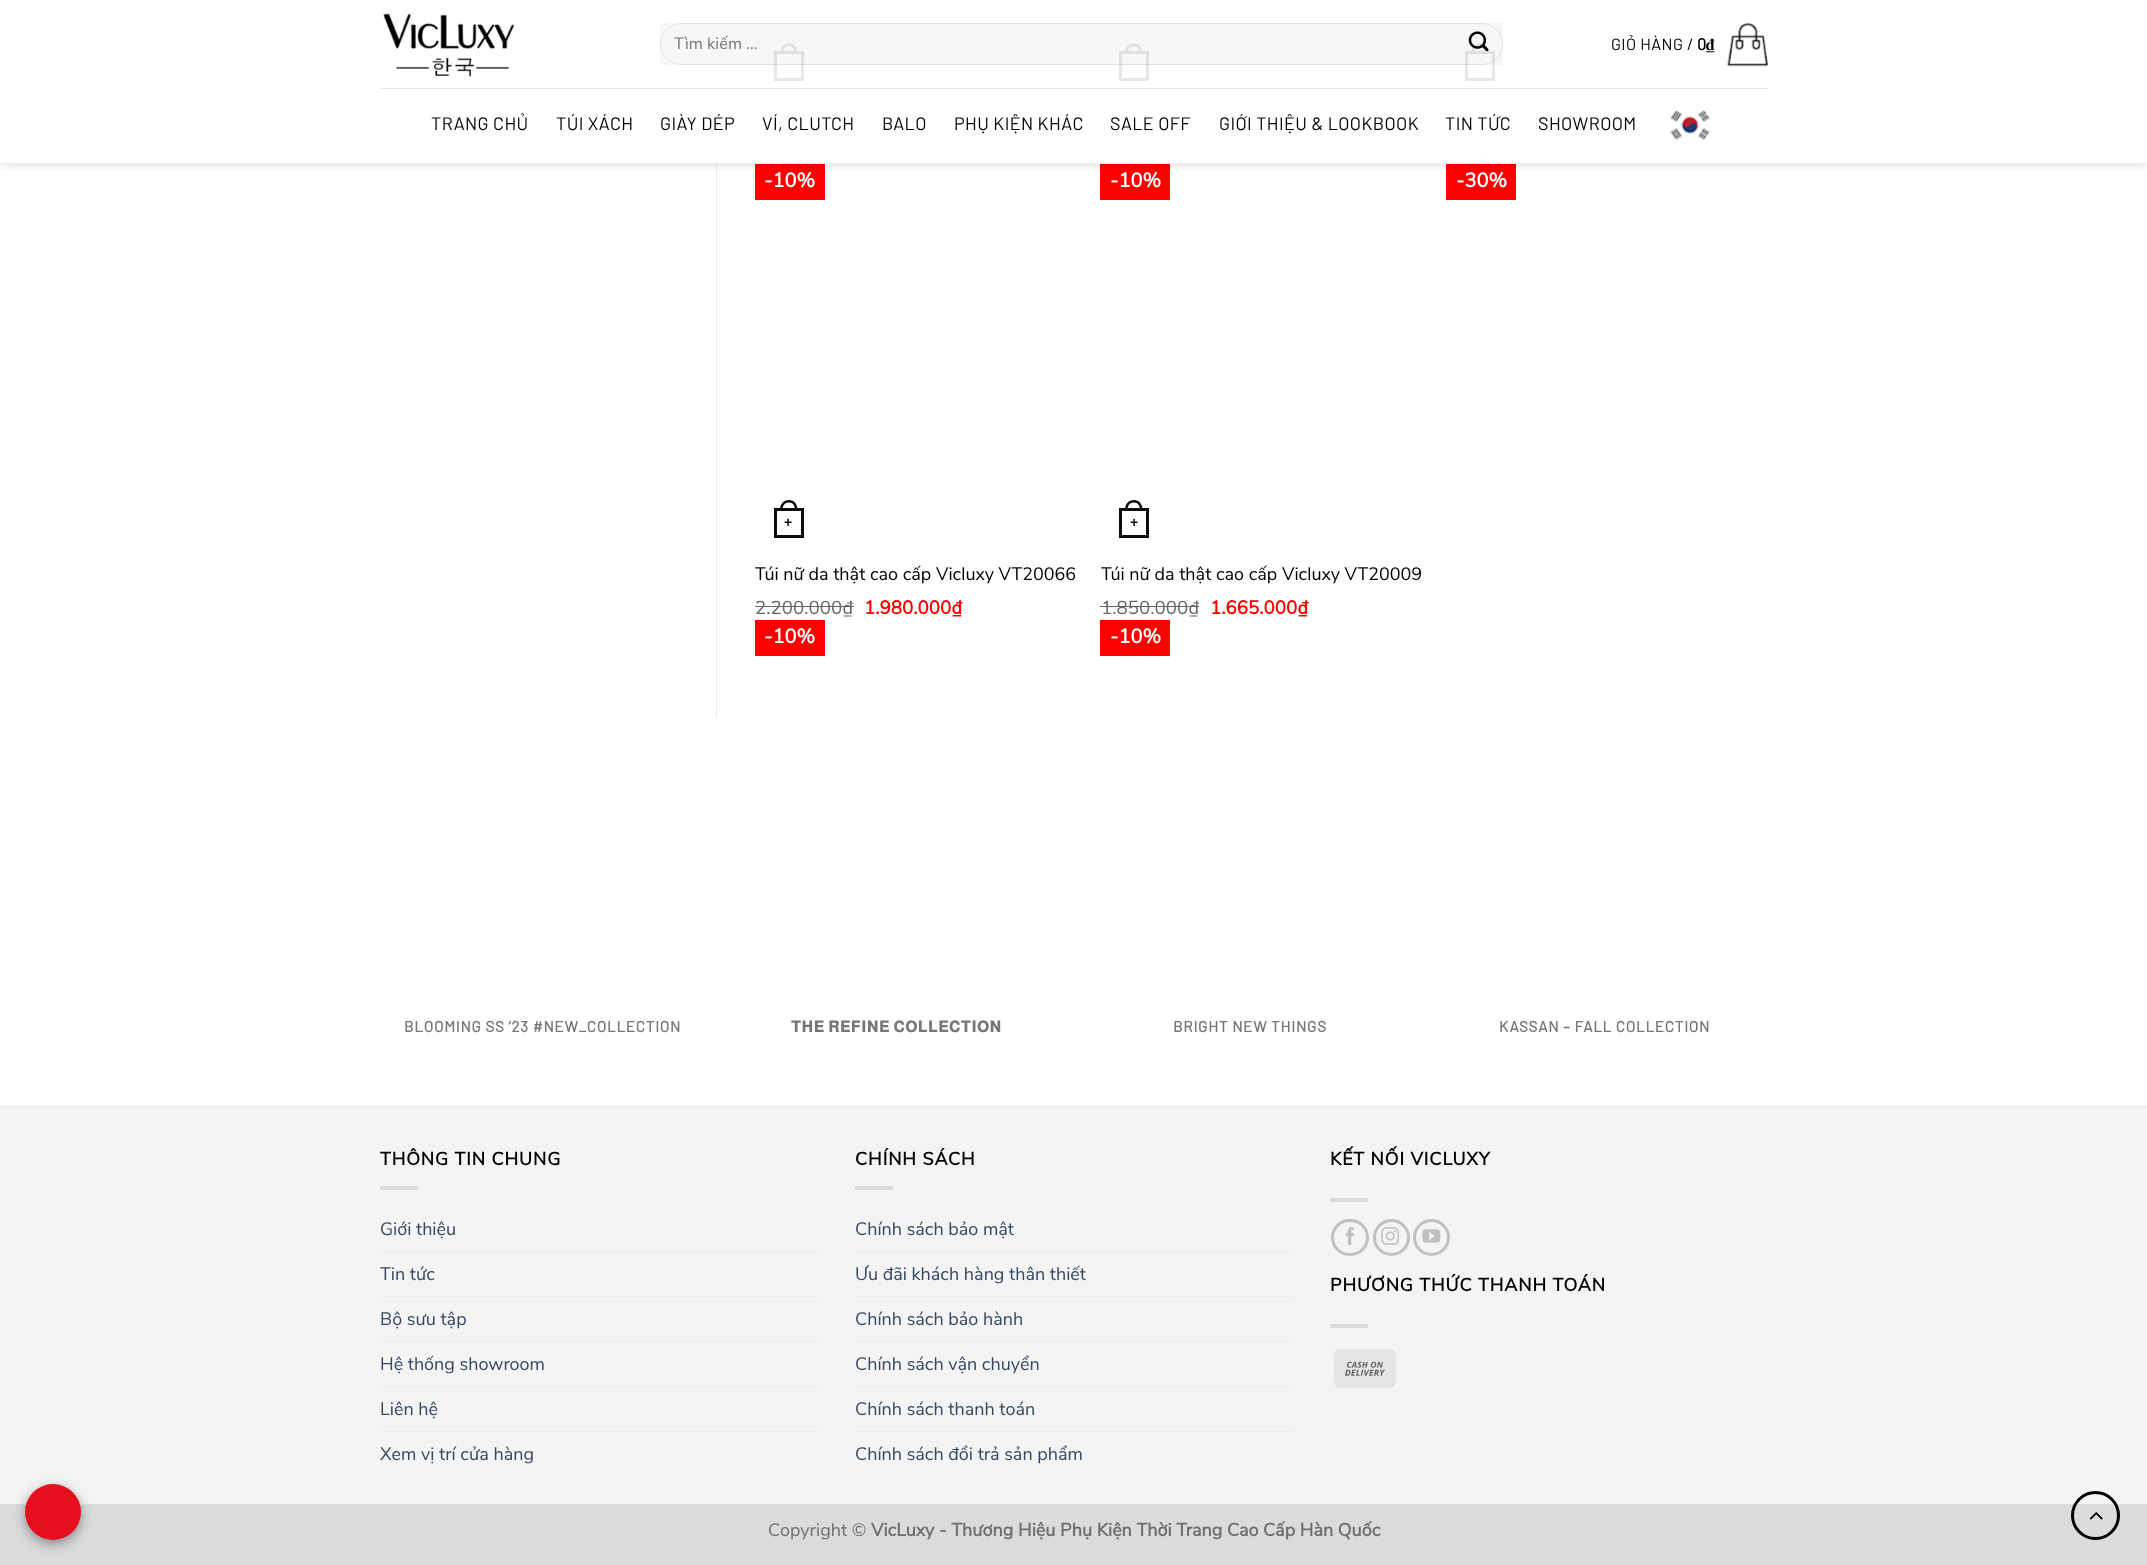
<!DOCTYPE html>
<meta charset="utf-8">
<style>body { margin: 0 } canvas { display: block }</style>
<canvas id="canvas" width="2147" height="1565"></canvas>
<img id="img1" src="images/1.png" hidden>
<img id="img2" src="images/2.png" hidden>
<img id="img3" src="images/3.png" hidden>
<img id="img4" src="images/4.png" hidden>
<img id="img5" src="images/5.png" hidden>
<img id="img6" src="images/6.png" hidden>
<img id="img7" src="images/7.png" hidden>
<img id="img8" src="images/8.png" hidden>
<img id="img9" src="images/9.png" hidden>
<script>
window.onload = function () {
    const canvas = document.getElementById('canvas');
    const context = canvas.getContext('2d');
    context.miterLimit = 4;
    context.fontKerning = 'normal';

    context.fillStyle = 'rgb(219, 219, 219)';
    context.fillRect(0, 0, 2147, 1565);
    context.fillStyle = 'rgb(244, 244, 244)';
    context.fillRect(0, 1107, 2147, 397);
    context.fillStyle = 'rgb(136, 136, 136)';
    context.filter = 'blur(6px)';
    context.beginPath();
    context.roundRect(25, 1488, 56, 56, 28);
    context.fill();
    context.filter = 'none';
    context.fillStyle = 'rgb(230, 15, 30)';
    context.beginPath();
    context.arc(53, 1512, 28, 0, 2 * Math.PI);
    context.fill();
    context.fillStyle = 'rgb(255, 255, 255)';
    context.fillRect(0, 0, 2147, 1106);
    context.fillStyle = 'rgb(236, 236, 236)';
    context.fillRect(716, 0, 1, 718);
    context.strokeStyle = 'rgb(13, 13, 13)';
    context.lineWidth = 3;
    context.strokeRect(775.5, 52.5, 27, 27);
    context.fillStyle = 'rgb(13, 13, 13)';
    context.beginPath();
    context.moveTo(789, 43.5);
    context.bezierCurveTo(794.5, 43.5, 797.5, 48.5, 797.5, 53.5);
    context.lineTo(780, 53.5);
    context.bezierCurveTo(780, 48.5, 783, 43.5, 789, 43.5);
    context.closePath();
    context.moveTo(789, 46);
    context.bezierCurveTo(793, 46, 795, 50, 795, 53.5);
    context.lineTo(782.5, 53.5);
    context.bezierCurveTo(782.5, 50, 784.5, 46, 789, 46);
    context.closePath();
    context.fill('evenodd');
    context.fillStyle = 'rgb(255, 0, 0)';
    context.fillRect(755, 164, 70, 36);
    context.strokeRect(1120.5, 52.5, 27, 27);
    context.fillStyle = 'rgb(13, 13, 13)';
    context.beginPath();
    context.moveTo(1134, 43.5);
    context.bezierCurveTo(1139.5, 43.5, 1142.5, 48.5, 1142.5, 53.5);
    context.lineTo(1125, 53.5);
    context.bezierCurveTo(1125, 48.5, 1128, 43.5, 1134, 43.5);
    context.closePath();
    context.moveTo(1134, 46);
    context.bezierCurveTo(1138, 46, 1140, 50, 1140, 53.5);
    context.lineTo(1127.5, 53.5);
    context.bezierCurveTo(1127.5, 50, 1129.5, 46, 1134, 46);
    context.closePath();
    context.fill('evenodd');
    context.fillStyle = 'rgb(255, 0, 0)';
    context.fillRect(1100, 164, 70, 36);
    context.strokeRect(1466.5, 52.5, 27, 27);
    context.fillStyle = 'rgb(13, 13, 13)';
    context.beginPath();
    context.moveTo(1480, 43.5);
    context.bezierCurveTo(1486, 43.5, 1489, 48.5, 1489, 53.5);
    context.lineTo(1471, 53.5);
    context.bezierCurveTo(1471, 48.5, 1474, 43.5, 1480, 43.5);
    context.closePath();
    context.moveTo(1480, 46);
    context.bezierCurveTo(1484.5, 46, 1486, 50, 1486, 53.5);
    context.lineTo(1474, 53.5);
    context.bezierCurveTo(1474, 50, 1475.5, 46, 1480, 46);
    context.closePath();
    context.fill('evenodd');
    context.fillStyle = 'rgb(255, 0, 0)';
    context.fillRect(1446, 164, 70, 36);
    context.save();
    context.beginPath();
    context.rect(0, 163, 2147, 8);
    context.clip();
    context.fillStyle = 'rgba(0, 0, 0, 0.15)';
    context.filter = 'blur(6px)';
    context.beginPath();
    context.rect(1, 1, 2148, 163);
    context.fill();
    context.filter = 'none';
    context.restore();
    context.fillStyle = 'rgba(255, 255, 255, 0.9)';
    context.fillRect(716, 0, 779, 88);
    context.drawImage(document.getElementById('img1'), 383, 13, 131, 64);
    context.fillStyle = 'rgba(0, 0, 0, 0.03)';
    context.fillRect(660, 23, 843, 42);
    context.beginPath();
    context.roundRect(660.5, 23.5, 842, 41, 20.5);
    context.strokeStyle = 'rgba(0, 0, 0, 0.09)';
    context.lineWidth = 1;
    context.stroke();
    context.drawImage(document.getElementById('img2'), 1468, 31, 21, 21);
    context.drawImage(document.getElementById('img3'), 1726, 23, 42, 44);
    context.fillStyle = 'rgb(255, 255, 255)';
    context.fillRect(0, 88, 2147, 75);
    context.fillStyle = 'rgb(230, 230, 230)';
    context.fillRect(380, 88, 1388, 1);
    context.drawImage(document.getElementById('img4'), 1670, 109, 40, 32);
    context.strokeStyle = 'rgb(13, 13, 13)';
    context.lineWidth = 3;
    context.strokeRect(775.5, 509.5, 27, 27);
    context.fillStyle = 'rgb(13, 13, 13)';
    context.beginPath();
    context.moveTo(789, 500);
    context.bezierCurveTo(794.5, 500, 797.5, 504.5, 797.5, 510);
    context.lineTo(780, 510);
    context.bezierCurveTo(780, 504.5, 783, 500, 789, 500);
    context.closePath();
    context.moveTo(789, 502.5);
    context.bezierCurveTo(793, 502.5, 795, 506, 795, 510);
    context.lineTo(782.5, 510);
    context.bezierCurveTo(782.5, 506, 784.5, 502.5, 789, 502.5);
    context.closePath();
    context.fill('evenodd');
    context.fillStyle = 'rgb(102, 102, 102)';
    context.fillRect(755, 606, 99, 1);
    context.fillStyle = 'rgb(255, 0, 0)';
    context.fillRect(755, 620, 70, 36);
    context.strokeRect(1120.5, 509.5, 27, 27);
    context.fillStyle = 'rgb(13, 13, 13)';
    context.beginPath();
    context.moveTo(1134, 500);
    context.bezierCurveTo(1139.5, 500, 1142.5, 504.5, 1142.5, 510);
    context.lineTo(1125, 510);
    context.bezierCurveTo(1125, 504.5, 1128, 500, 1134, 500);
    context.closePath();
    context.moveTo(1134, 502.5);
    context.bezierCurveTo(1138, 502.5, 1140, 506, 1140, 510);
    context.lineTo(1127.5, 510);
    context.bezierCurveTo(1127.5, 506, 1129.5, 502.5, 1134, 502.5);
    context.closePath();
    context.fill('evenodd');
    context.fillStyle = 'rgb(102, 102, 102)';
    context.fillRect(1100, 606, 99, 1);
    context.fillStyle = 'rgb(255, 0, 0)';
    context.fillRect(1100, 620, 70, 36);
    context.fillStyle = 'rgb(232, 232, 232)';
    context.fillRect(0, 1106, 2147, 1);
    context.fillStyle = 'rgb(220, 220, 220)';
    context.fillRect(380, 1186, 38, 4);
    context.fillStyle = 'rgb(236, 236, 236)';
    context.fillRect(380, 1251, 438, 1);
    context.fillRect(380, 1296, 438, 1);
    context.fillRect(380, 1341, 438, 1);
    context.fillRect(380, 1386, 438, 1);
    context.fillRect(380, 1431, 438, 1);
    context.fillStyle = 'rgb(220, 220, 220)';
    context.fillRect(855, 1186, 38, 4);
    context.fillStyle = 'rgb(236, 236, 236)';
    context.fillRect(855, 1251, 438, 1);
    context.fillRect(855, 1296, 438, 1);
    context.fillRect(855, 1341, 438, 1);
    context.fillRect(855, 1386, 438, 1);
    context.fillRect(855, 1431, 438, 1);
    context.fillStyle = 'rgb(220, 220, 220)';
    context.fillRect(1330, 1198, 38, 4);
    context.beginPath();
    context.roundRect(1332.5, 1220.5, 35, 34, 17);
    context.strokeStyle = 'rgb(192, 192, 192)';
    context.stroke();
    context.drawImage(document.getElementById('img5'), 1345, 1227, 9, 18);
    context.beginPath();
    context.arc(1391.5, 1237.5, 17, 0, 2 * Math.PI);
    context.stroke();
    context.drawImage(document.getElementById('img6'), 1381, 1227, 18, 18);
    context.beginPath();
    context.arc(1431.5, 1237.5, 17, 0, 2 * Math.PI);
    context.stroke();
    context.drawImage(document.getElementById('img7'), 1422, 1229, 19, 14);
    context.fillRect(1330, 1324, 38, 4);
    context.fillStyle = 'rgb(229, 229, 229)';
    context.beginPath();
    context.roundRect(1334, 1349, 62, 39, 6);
    context.fill();
    context.drawImage(document.getElementById('img8'), 1345, 1361, 40, 15);
    context.beginPath();
    context.arc(2095.5, 1515.5, 23, 0, 2 * Math.PI);
    context.strokeStyle = 'rgb(0, 0, 0)';
    context.stroke();
    context.drawImage(document.getElementById('img9'), 2089, 1512, 14, 8);
    context.font = '16.5px Nunito Sans';
    context.fillStyle = 'rgb(119, 119, 119)';
    context.fillText('Tìm kiếm ...', 674, 49);
    context.letterSpacing = '0.4px';
    context.font = '16.25px Barlow';
    context.fillStyle = 'rgb(0, 0, 0)';
    context.fillText('GIỎ HÀNG /', 1611, 50);
    context.font = 'bold 16.25px Barlow';
    context.fillText('0', 1697, 50);
    context.font = 'bold 16.25px Liberation Serif';
    context.fillText('₫', 1706, 50);
    context.font = '18px Barlow';
    context.fillText('TRANG CHỦ', 431, 130);
    context.fillText('TÚI XÁCH', 556, 130);
    context.fillText('GIÀY DÉP', 660, 130);
    context.fillText('VÍ, CLUTCH', 762, 130);
    context.fillText('BALO', 882, 130);
    context.fillText('PHỤ KIỆN KHÁC', 954, 130);
    context.fillText('SALE OFF', 1110, 130);
    context.fillText('GIỚI THIỆU & LOOKBOOK', 1219, 130);
    context.fillText('TIN TỨC', 1445, 130);
    context.fillText('SHOWROOM', 1538, 130);
    context.letterSpacing = '0px';
    context.font = 'bold 20px Nunito Sans';
    context.fillStyle = 'rgb(255, 255, 255)';
    context.fillText('-10%', 764, 187);
    context.fillText('-10%', 1110, 187);
    context.fillText('-30%', 1456, 187);
    context.font = 'bold 14px Liberation Sans';
    context.fillStyle = 'rgb(13, 13, 13)';
    context.fillText('+', 784, 527);
    context.font = '18px Nunito Sans';
    context.fillStyle = 'rgb(0, 0, 0)';
    context.fillText('Túi nữ da thật cao cấp Vicluxy VT20066', 755, 580);
    context.font = '18.75px Nunito Sans';
    context.fillStyle = 'rgb(102, 102, 102)';
    context.fillText('2.200.000₫', 755, 614);
    context.font = 'bold 18.75px Nunito Sans';
    context.fillStyle = 'rgb(255, 0, 0)';
    context.fillText('1.980.000₫', 864, 614);
    context.font = 'bold 20px Nunito Sans';
    context.fillStyle = 'rgb(255, 255, 255)';
    context.fillText('-10%', 764, 643);
    context.font = 'bold 14px Liberation Sans';
    context.fillStyle = 'rgb(13, 13, 13)';
    context.fillText('+', 1130, 527);
    context.font = '18px Nunito Sans';
    context.fillStyle = 'rgb(0, 0, 0)';
    context.fillText('Túi nữ da thật cao cấp Vicluxy VT20009', 1101, 580);
    context.font = '18.75px Nunito Sans';
    context.fillStyle = 'rgb(102, 102, 102)';
    context.fillText('1.850.000₫', 1101, 614);
    context.font = 'bold 18.75px Nunito Sans';
    context.fillStyle = 'rgb(255, 0, 0)';
    context.fillText('1.665.000₫', 1210, 614);
    context.font = 'bold 20px Nunito Sans';
    context.fillStyle = 'rgb(255, 255, 255)';
    context.fillText('-10%', 1110, 643);
    context.letterSpacing = '0.75px';
    context.font = 'bold 15.25px Barlow';
    context.fillStyle = 'rgb(119, 119, 119)';
    context.fillText('BLOOMING SS ’23 #NEW_COLLECTION', 404, 1032);
    context.wordSpacing = '-1px';
    context.font = 'bold 15.25px FreeSans';
    context.fillText('𝐓𝐇𝐄 𝐑𝐄𝐅𝐈𝐍𝐄 𝐂𝐎𝐋𝐋𝐄𝐂𝐓𝐈𝐎𝐍', 791, 1032);
    context.wordSpacing = '0px';
    context.font = 'bold 15.25px Barlow';
    context.fillText('BRIGHT NEW THINGS', 1173, 1032);
    context.fillText('KASSAN – FALL COLLECTION', 1499, 1032);
    context.letterSpacing = '0.9px';
    context.font = 'bold 18px Nunito Sans';
    context.fillStyle = 'rgb(0, 0, 0)';
    context.fillText('THÔNG TIN CHUNG', 380, 1165);
    context.letterSpacing = '0px';
    context.font = '18px Nunito Sans';
    context.fillStyle = 'rgb(51, 72, 98)';
    context.fillText('Giới thiệu', 380, 1235);
    context.fillText('Tin tức', 380, 1280);
    context.fillText('Bộ sưu tập', 380, 1325);
    context.fillText('Hệ thống showroom', 380, 1370);
    context.fillText('Liên hệ', 380, 1415);
    context.fillText('Xem vị trí cửa hàng', 380, 1460);
    context.letterSpacing = '0.9px';
    context.font = 'bold 18px Nunito Sans';
    context.fillStyle = 'rgb(0, 0, 0)';
    context.fillText('CHÍNH SÁCH', 855, 1165);
    context.letterSpacing = '0px';
    context.font = '18px Nunito Sans';
    context.fillStyle = 'rgb(51, 72, 98)';
    context.fillText('Chính sách bảo mật', 855, 1235);
    context.fillText('Ưu đãi khách hàng thân thiết', 855, 1280);
    context.fillText('Chính sách bảo hành', 855, 1325);
    context.fillText('Chính sách vận chuyển', 855, 1370);
    context.fillText('Chính sách thanh toán', 855, 1415);
    context.fillText('Chính sách đổi trả sản phẩm', 855, 1460);
    context.letterSpacing = '0.9px';
    context.font = 'bold 18px Nunito Sans';
    context.fillStyle = 'rgb(0, 0, 0)';
    context.fillText('KẾT NỐI VICLUXY', 1330, 1165);
    context.fillText('PHƯƠNG THỨC THANH TOÁN', 1330, 1291);
    context.letterSpacing = '0px';
    context.font = '18px Nunito Sans';
    context.fillStyle = 'rgb(110, 110, 110)';
    context.fillText('Copyright ©', 768, 1536);
    context.font = 'bold 18px Nunito Sans';
    context.fillText('VicLuxy - Thương Hiệu Phụ Kiện Thời Trang Cao Cấp Hàn Quốc', 871, 1536);
};
</script>
